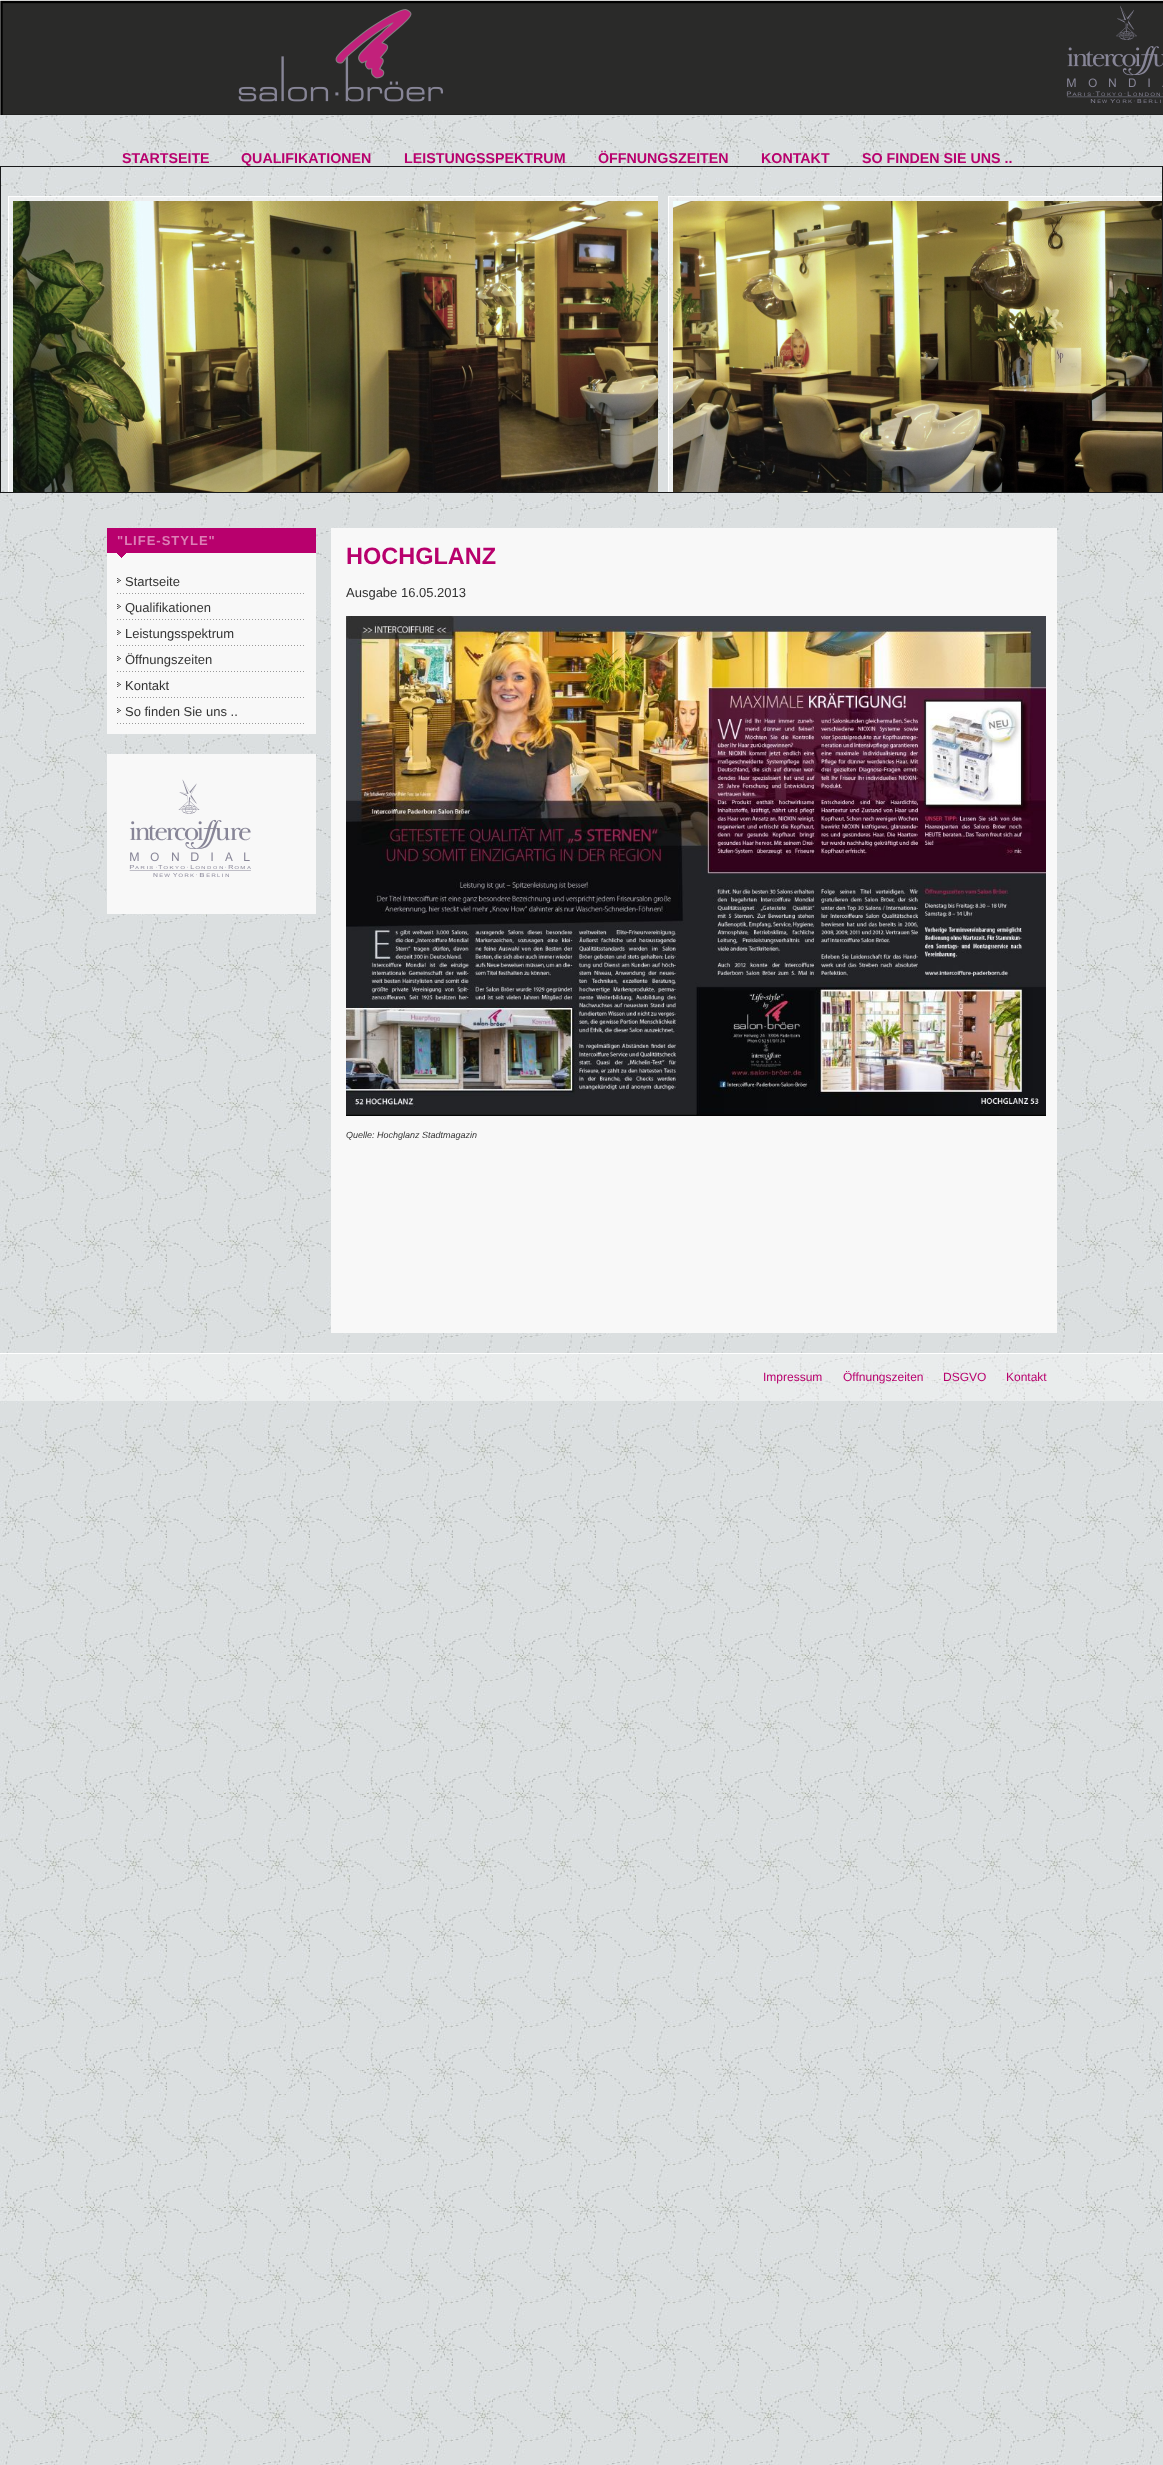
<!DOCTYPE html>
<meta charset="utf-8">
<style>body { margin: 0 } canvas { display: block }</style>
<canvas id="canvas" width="1163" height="2465"></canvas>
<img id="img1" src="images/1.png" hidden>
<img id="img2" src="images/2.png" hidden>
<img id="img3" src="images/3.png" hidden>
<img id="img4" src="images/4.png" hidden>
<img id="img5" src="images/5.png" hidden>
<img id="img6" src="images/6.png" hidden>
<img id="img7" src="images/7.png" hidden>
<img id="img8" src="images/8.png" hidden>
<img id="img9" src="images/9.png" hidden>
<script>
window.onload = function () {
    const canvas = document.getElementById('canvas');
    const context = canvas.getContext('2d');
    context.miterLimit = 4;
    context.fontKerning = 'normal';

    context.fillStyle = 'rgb(255, 255, 255)';
    context.fillRect(0, 0, 1163, 2465);
    context.drawImage(document.getElementById('img1'), 0, 115, 1163, 2350);
    context.drawImage(document.getElementById('img2'), 0, 0, 1163, 115);
    context.strokeStyle = 'rgb(25, 26, 27)';
    context.strokeRect(0.5, 166.5, 1162, 326);
    context.drawImage(document.getElementById('img3'), 9, 197, 649, 295);
    context.save();
    context.beginPath();
    context.rect(8, 196, 650, 296);
    context.clip();
    context.strokeStyle = 'rgb(255, 255, 255)';
    context.strokeRect(8.5, 196.5, 659, 305);
    context.restore();
    context.drawImage(document.getElementById('img4'), 669, 197, 493, 295);
    context.save();
    context.beginPath();
    context.rect(668, 196, 494, 296);
    context.clip();
    context.strokeStyle = 'rgb(255, 255, 255)';
    context.strokeRect(668.5, 196.5, 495, 305);
    context.restore();
    context.fillStyle = 'rgb(248, 248, 248)';
    context.fillRect(107, 553, 209, 181);
    context.drawImage(document.getElementById('img5'), 107, 528, 209, 30);
    context.drawImage(document.getElementById('img6'), 117, 593, 187, 1);
    context.drawImage(document.getElementById('img7'), 117, 578, 4, 5);
    context.drawImage(document.getElementById('img6'), 117, 619, 187, 1);
    context.drawImage(document.getElementById('img7'), 117, 604, 4, 5);
    context.drawImage(document.getElementById('img6'), 117, 645, 187, 1);
    context.drawImage(document.getElementById('img7'), 117, 630, 4, 5);
    context.drawImage(document.getElementById('img6'), 117, 671, 187, 1);
    context.drawImage(document.getElementById('img7'), 117, 656, 4, 5);
    context.drawImage(document.getElementById('img6'), 117, 697, 187, 1);
    context.drawImage(document.getElementById('img7'), 117, 682, 4, 5);
    context.drawImage(document.getElementById('img6'), 117, 723, 187, 1);
    context.drawImage(document.getElementById('img7'), 117, 708, 4, 5);
    context.fillRect(107, 754, 209, 160);
    context.drawImage(document.getElementById('img8'), 129, 779, 122, 98);
    context.fillRect(331, 528, 726, 805);
    context.drawImage(document.getElementById('img9'), 346, 616, 700, 500);
    context.fillStyle = 'rgba(255, 255, 255, 0.4)';
    context.fillRect(0, 1354, 1163, 47);
    context.fillStyle = 'rgb(255, 255, 255)';
    context.fillRect(0, 1353, 1163, 1);
    context.font = 'bold 14.25px Liberation Sans';
    context.fillStyle = 'rgb(184, 0, 109)';
    context.fillText('STARTSEITE', 122, 163);
    context.fillText('QUALIFIKATIONEN', 241, 163);
    context.fillText('LEISTUNGSSPEKTRUM', 404, 163);
    context.fillText('ÖFFNUNGSZEITEN', 598, 163);
    context.fillText('KONTAKT', 761, 163);
    context.fillText('SO FINDEN SIE UNS ..', 862, 163);
    context.letterSpacing = '1px';
    context.font = 'bold 13px Liberation Sans';
    context.fillStyle = 'rgb(220, 127, 182)';
    context.fillText('"LIFE-STYLE"', 117, 545);
    context.letterSpacing = '0px';
    context.font = '13px Liberation Sans';
    context.fillStyle = 'rgb(51, 51, 51)';
    context.fillText('Startseite', 125, 586);
    context.fillText('Qualifikationen', 125, 612);
    context.fillText('Leistungsspektrum', 125, 638);
    context.fillText('Öffnungszeiten', 125, 664);
    context.fillText('Kontakt', 125, 690);
    context.fillText('So finden Sie uns ..', 125, 716);
    context.font = 'bold 23.5px Liberation Sans';
    context.fillStyle = 'rgb(184, 0, 109)';
    context.fillText('HOCHGLANZ', 346, 564);
    context.font = '13px Liberation Sans';
    context.fillStyle = 'rgb(51, 51, 51)';
    context.fillText('Ausgabe 16.05.2013', 346, 597);
    context.font = 'italic 9px Liberation Sans';
    context.fillText('Quelle: Hochglanz Stadtmagazin', 346, 1138);
    context.font = '12px Liberation Sans';
    context.fillStyle = 'rgb(184, 0, 109)';
    context.fillText('Impressum', 763, 1381);
    context.fillText('Öffnungszeiten', 843, 1381);
    context.fillText('DSGVO', 943, 1381);
    context.fillText('Kontakt', 1006, 1381);
};
</script>
